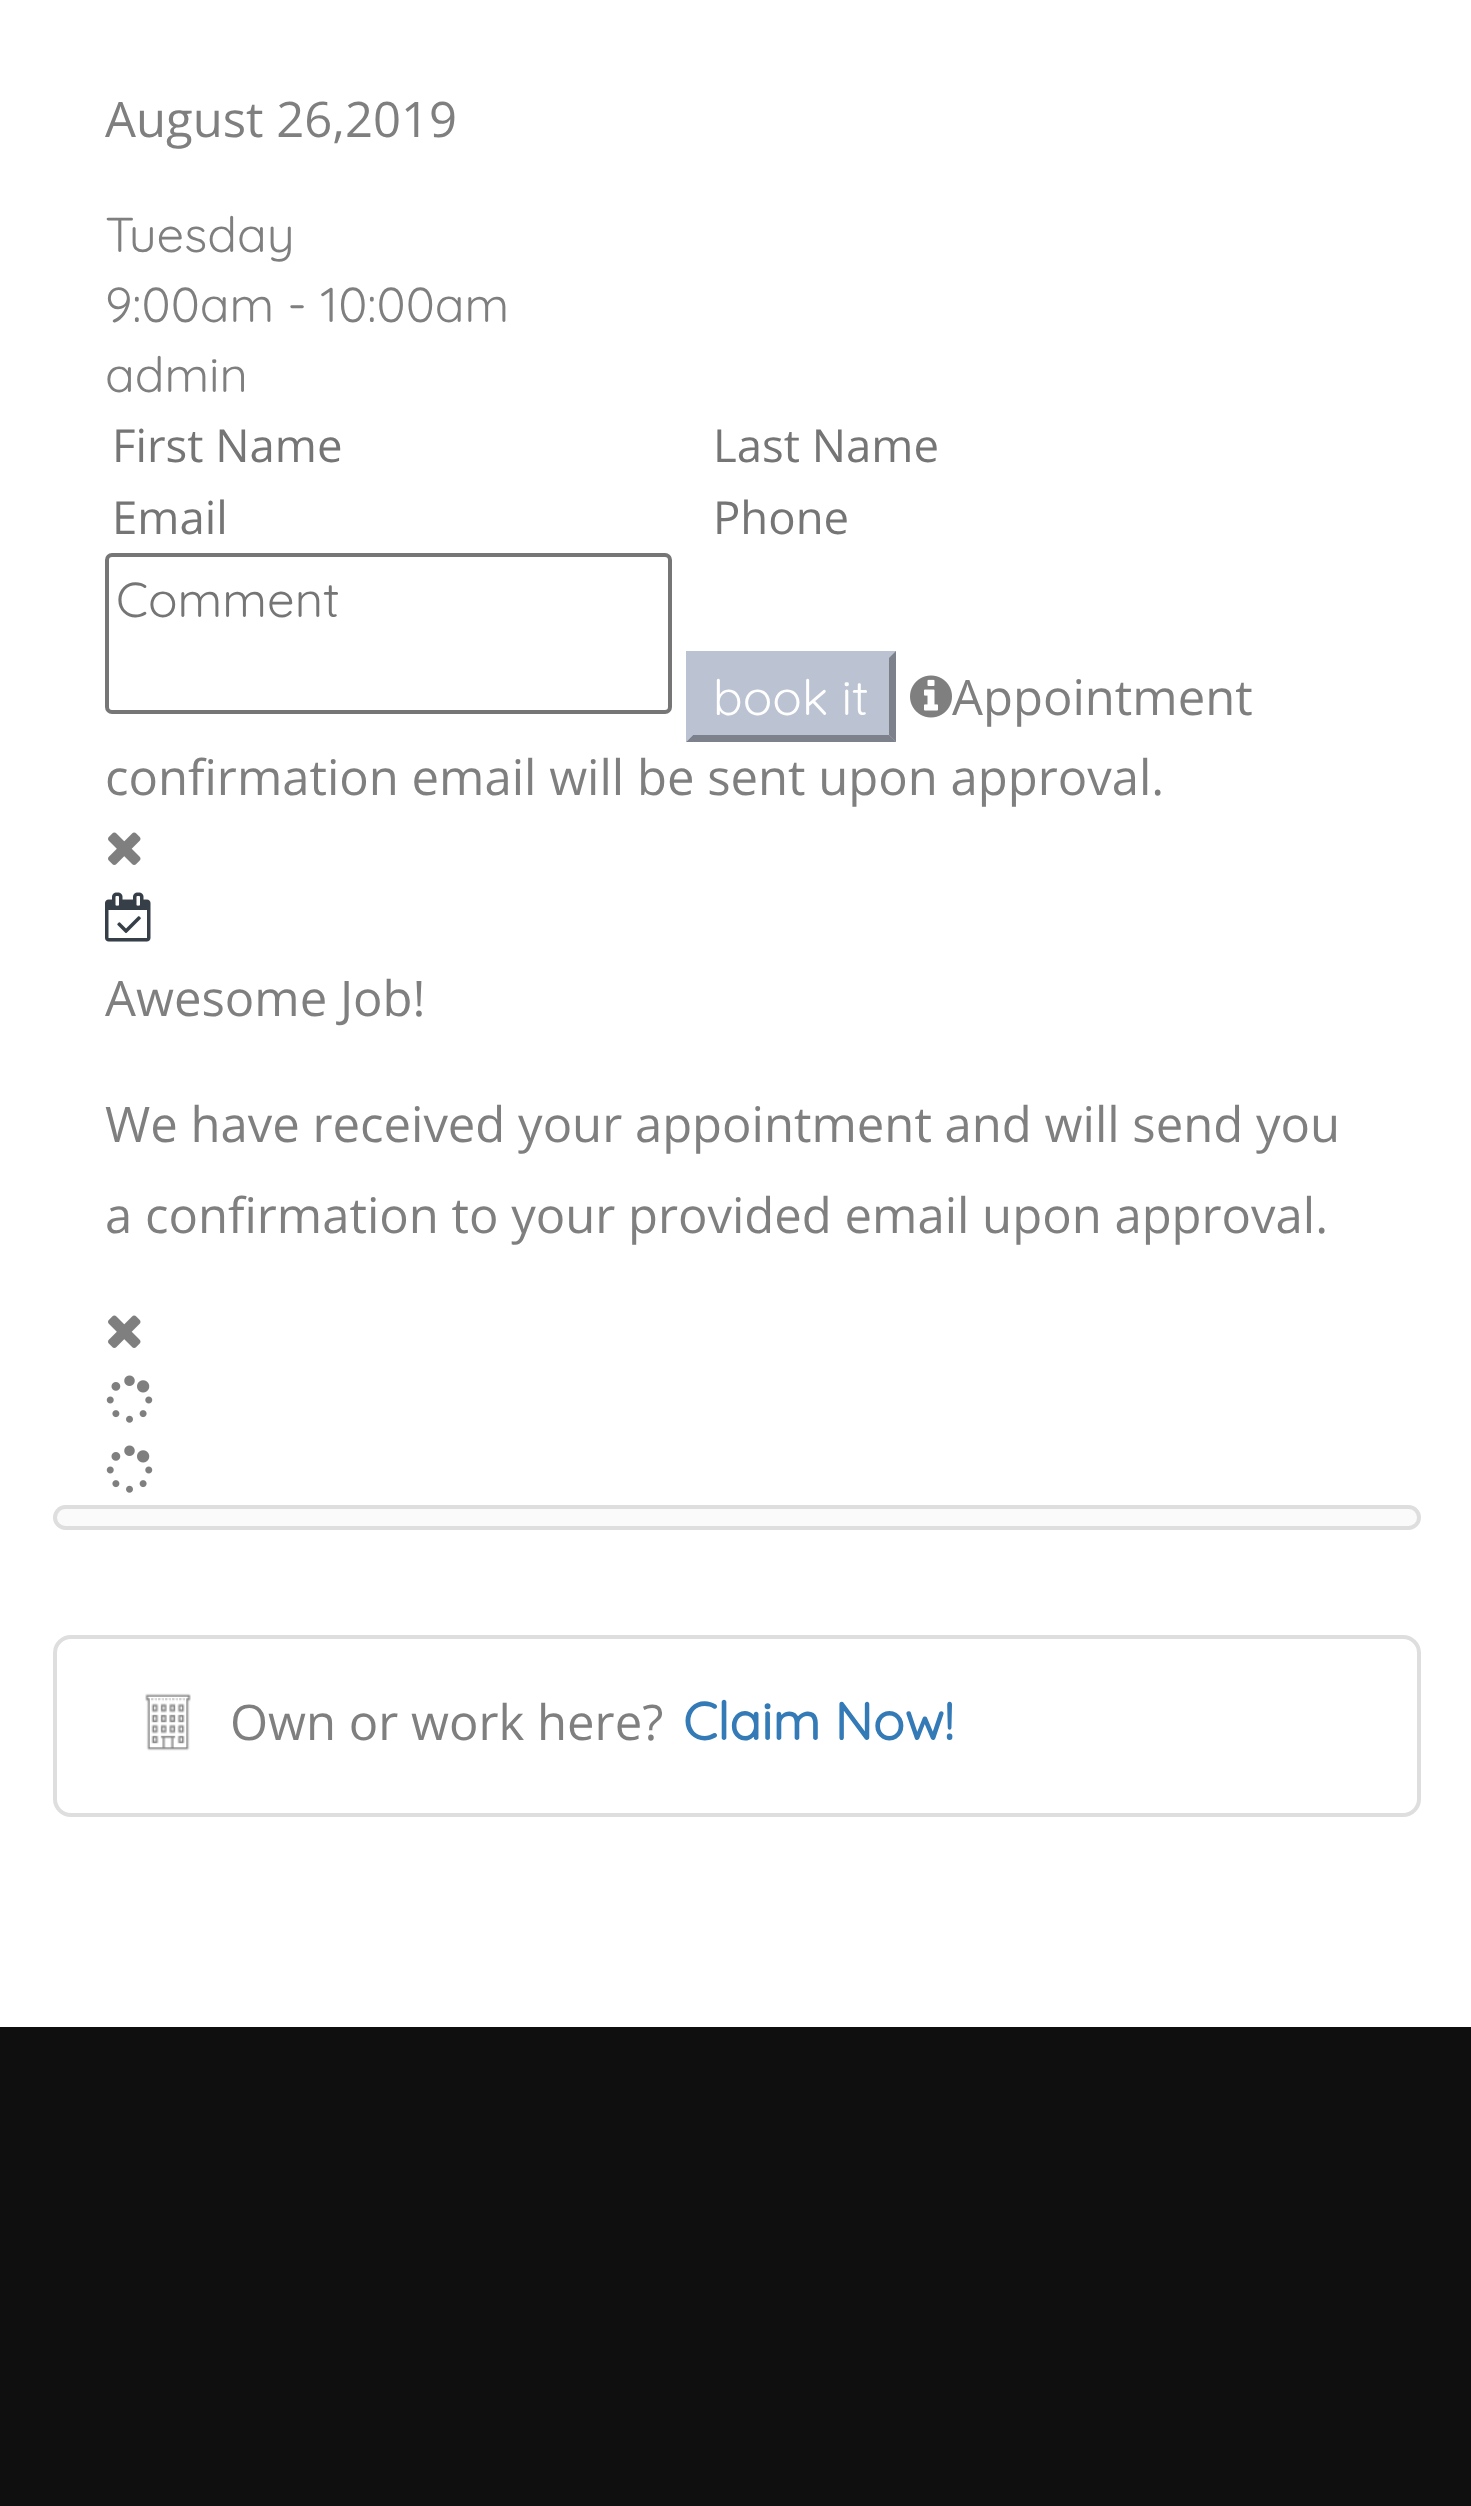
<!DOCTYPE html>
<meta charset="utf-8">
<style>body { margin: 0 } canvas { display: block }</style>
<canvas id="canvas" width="1471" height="2506"></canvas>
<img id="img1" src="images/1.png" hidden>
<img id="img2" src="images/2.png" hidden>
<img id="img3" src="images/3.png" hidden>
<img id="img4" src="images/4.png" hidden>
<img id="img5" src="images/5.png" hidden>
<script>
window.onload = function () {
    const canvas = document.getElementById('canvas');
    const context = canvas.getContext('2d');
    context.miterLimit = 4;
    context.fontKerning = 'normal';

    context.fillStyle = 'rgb(15, 15, 15)';
    context.fillRect(0, 0, 1471, 2506);
    context.fillStyle = 'rgb(255, 255, 255)';
    context.fillRect(0, 0, 1471, 2027);
    context.beginPath();
    context.roundRect(107, 555, 563, 157, 5);
    context.strokeStyle = 'rgb(118, 118, 118)';
    context.lineWidth = 4;
    context.stroke();
    context.fillStyle = 'rgb(187, 194, 210)';
    context.fillRect(686, 651, 210, 91);
    context.fillStyle = 'rgb(125, 129, 140)';
    context.beginPath();
    context.moveTo(896, 651);
    context.lineTo(896, 742);
    context.lineTo(889, 735);
    context.lineTo(889, 658);
    context.closePath();
    context.fill();
    context.beginPath();
    context.moveTo(896, 742);
    context.lineTo(686, 742);
    context.lineTo(693, 735);
    context.lineTo(889, 735);
    context.closePath();
    context.fill();
    context.fillStyle = 'rgb(187, 194, 210)';
    context.beginPath();
    context.moveTo(686, 742);
    context.lineTo(686, 651);
    context.lineTo(693, 658);
    context.lineTo(693, 735);
    context.closePath();
    context.fill();
    context.drawImage(document.getElementById('img1'), 910, 675, 42, 43);
    context.drawImage(document.getElementById('img2'), 108, 832, 33, 33);
    context.drawImage(document.getElementById('img3'), 105, 892, 46, 50);
    context.drawImage(document.getElementById('img2'), 108, 1315, 33, 33);
    context.drawImage(document.getElementById('img4'), 106, 1375, 47, 48);
    context.drawImage(document.getElementById('img4'), 106, 1445, 47, 48);
    context.fillStyle = 'rgb(250, 250, 250)';
    context.beginPath();
    context.roundRect(55, 1507, 1364, 21, 10.5);
    context.fill();
    context.strokeStyle = 'rgb(222, 222, 222)';
    context.stroke();
    context.beginPath();
    context.roundRect(55, 1637, 1364, 178, 16);
    context.stroke();
    context.drawImage(document.getElementById('img5'), 145, 1693, 46, 58);
    context.font = '49px Open Sans';
    context.fillStyle = 'rgb(127, 127, 127)';
    context.fillText('August 26,2019', 105, 137);
    context.font = '300 49px Quicksand';
    context.fillText('Tuesday', 105, 252);
    context.fillText('9:00am - 10:00am', 105, 322);
    context.fillText('admin', 105, 392);
    context.font = '45.5px Open Sans';
    context.fillStyle = 'rgb(117, 117, 117)';
    context.fillText('First Name', 112, 462);
    context.fillText('Last Name', 713, 462);
    context.fillText('Email', 112, 534);
    context.fillText('Phone', 713, 534);
    context.font = '300 49px Quicksand';
    context.fillText('Comment', 116, 617);
    context.fillStyle = 'rgb(255, 255, 255)';
    context.fillText('book it', 713, 715);
    context.font = '49px Open Sans';
    context.fillStyle = 'rgb(127, 127, 127)';
    context.fillText('Appointment', 952, 715);
    context.fillText('confirmation email will be sent upon approval.', 105, 795);
    context.fillText('Awesome Job!', 105, 1016);
    context.fillText('We have received your appointment and will send you', 105, 1142);
    context.fillText('a confirmation to your provided email upon approval.', 105, 1233);
    context.fillText('Own or work here?', 230, 1740);
    context.font = 'bold 52.5px Quicksand';
    context.fillStyle = 'rgb(51, 122, 183)';
    context.fillText('Claim Now!', 683, 1740);
};
</script>
